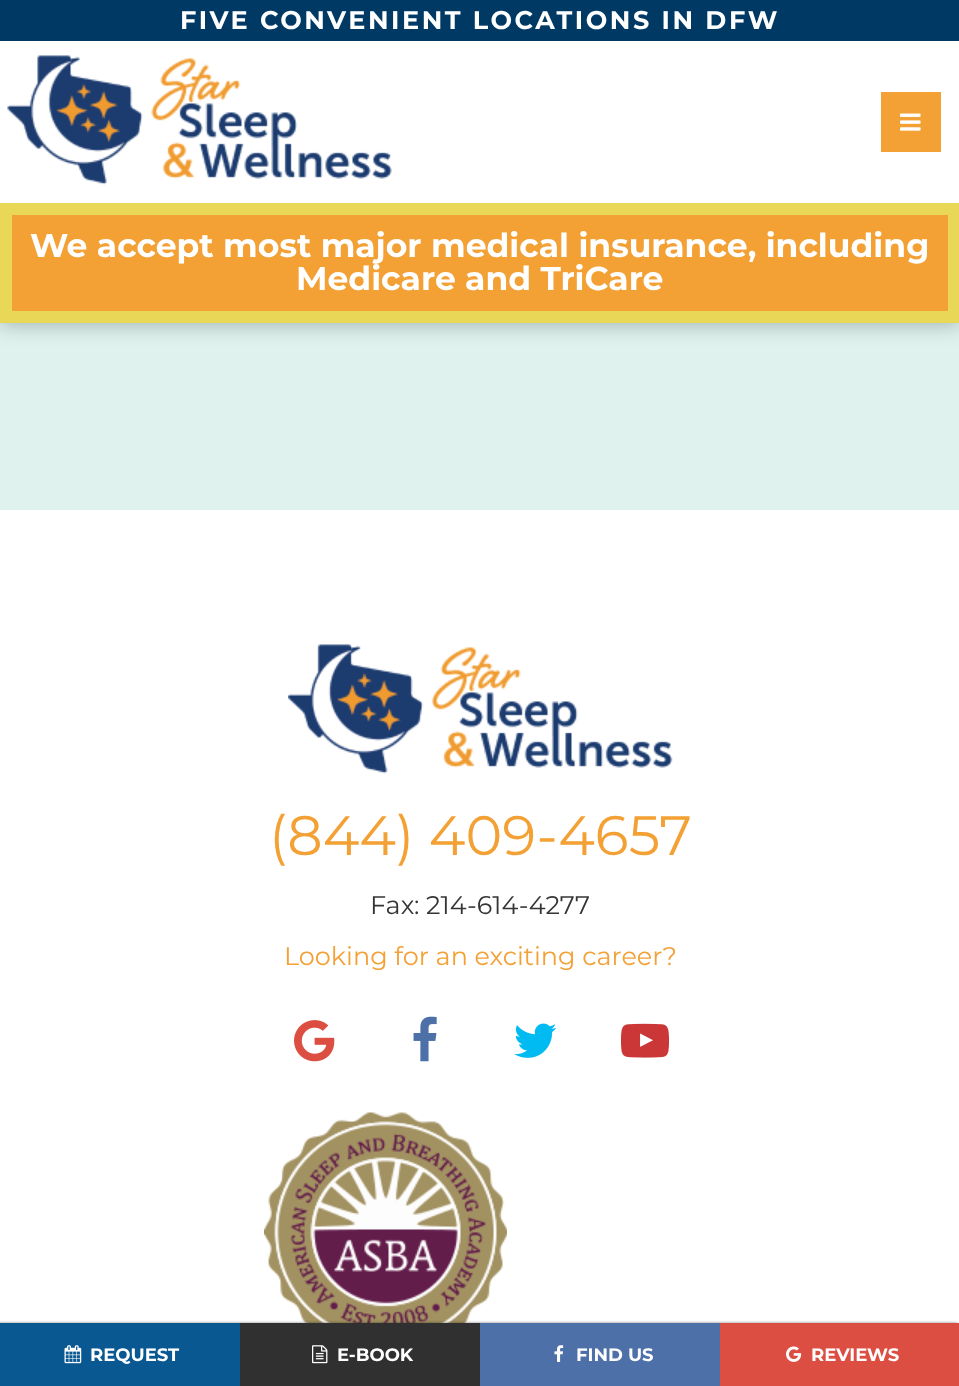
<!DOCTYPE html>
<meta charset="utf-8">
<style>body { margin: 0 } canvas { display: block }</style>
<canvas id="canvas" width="959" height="1386"></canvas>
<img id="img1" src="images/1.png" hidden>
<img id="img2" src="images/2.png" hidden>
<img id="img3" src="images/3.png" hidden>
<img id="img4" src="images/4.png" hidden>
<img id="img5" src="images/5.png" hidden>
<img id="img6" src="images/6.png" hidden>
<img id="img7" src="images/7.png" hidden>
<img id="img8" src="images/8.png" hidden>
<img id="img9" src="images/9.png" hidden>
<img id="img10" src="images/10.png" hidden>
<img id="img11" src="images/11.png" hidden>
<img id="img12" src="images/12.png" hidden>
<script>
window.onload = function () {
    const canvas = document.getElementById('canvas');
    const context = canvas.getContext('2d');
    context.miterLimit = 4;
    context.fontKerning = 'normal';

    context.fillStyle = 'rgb(223, 242, 238)';
    context.fillRect(0, 0, 959, 1386);
    context.fillStyle = 'rgba(0, 0, 0, 0.3)';
    context.filter = 'blur(11px)';
    context.beginPath();
    context.rect(0, 0, 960, 323);
    context.fill();
    context.filter = 'none';
    context.fillStyle = 'rgb(255, 255, 255)';
    context.fillRect(0, 41, 959, 162);
    context.fillStyle = 'rgb(0, 58, 100)';
    context.fillRect(0, 0, 959, 41);
    context.drawImage(document.getElementById('img1'), 7, 55, 385, 130);
    context.fillStyle = 'rgb(243, 161, 53)';
    context.fillRect(881, 92, 60, 60);
    context.drawImage(document.getElementById('img2'), 900, 113, 21, 18);
    context.beginPath();
    context.rect(6, 209, 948, 108);
    context.fill();
    context.strokeStyle = 'rgb(233, 215, 88)';
    context.lineWidth = 12;
    context.stroke();
    context.fillStyle = 'rgb(255, 255, 255)';
    context.fillRect(0, 510, 959, 813);
    context.drawImage(document.getElementById('img3'), 288, 644, 385, 130);
    context.drawImage(document.getElementById('img4'), 294, 1020, 41, 42);
    context.drawImage(document.getElementById('img5'), 413, 1016, 24, 46);
    context.drawImage(document.getElementById('img6'), 514, 1023, 43, 35);
    context.drawImage(document.getElementById('img7'), 621, 1023, 48, 35);
    context.drawImage(document.getElementById('img8'), 264, 1112, 243, 211);
    context.fillStyle = 'rgba(0, 0, 0, 0.5)';
    context.filter = 'blur(1.5px)';
    context.beginPath();
    context.rect(-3, 1323, 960, 63);
    context.fill();
    context.filter = 'none';
    context.fillStyle = 'rgb(10, 88, 145)';
    context.fillRect(0, 1323, 240, 63);
    context.drawImage(document.getElementById('img9'), 64, 1345, 18, 19);
    context.fillStyle = 'rgb(47, 48, 47)';
    context.fillRect(240, 1323, 240, 63);
    context.drawImage(document.getElementById('img10'), 312, 1345, 16, 19);
    context.fillStyle = 'rgb(77, 112, 168)';
    context.fillRect(480, 1323, 240, 63);
    context.drawImage(document.getElementById('img11'), 554, 1345, 10, 17);
    context.fillStyle = 'rgb(220, 78, 65)';
    context.fillRect(720, 1323, 239, 63);
    context.drawImage(document.getElementById('img12'), 786, 1346, 16, 16);
    context.letterSpacing = '2.55px';
    context.font = 'bold 25.5px Montserrat';
    context.fillStyle = 'rgb(255, 255, 255)';
    context.fillText('FIVE CONVENIENT LOCATIONS IN DFW', 180, 29);
    context.letterSpacing = '0px';
    context.font = 'bold 33px Montserrat';
    context.fillText('We accept most major medical insurance, including', 30, 257);
    context.fillText('Medicare and TriCare', 296, 290);
    context.font = '55.5px Montserrat';
    context.fillStyle = 'rgb(243, 161, 53)';
    context.fillText('(844) 409-4657', 269, 855);
    context.font = '25.5px Montserrat';
    context.fillStyle = 'rgb(53, 53, 53)';
    context.fillText('Fax: 214-614-4277', 370, 914);
    context.fillStyle = 'rgb(243, 161, 53)';
    context.fillText('Looking for an exciting career?', 284, 965);
    context.font = 'bold 18px Montserrat';
    context.fillStyle = 'rgb(255, 255, 255)';
    context.fillText('REQUEST', 90, 1361);
    context.fillText('E-BOOK', 337, 1361);
    context.fillText('FIND US', 576, 1361);
    context.fillText('REVIEWS', 811, 1361);
};
</script>
